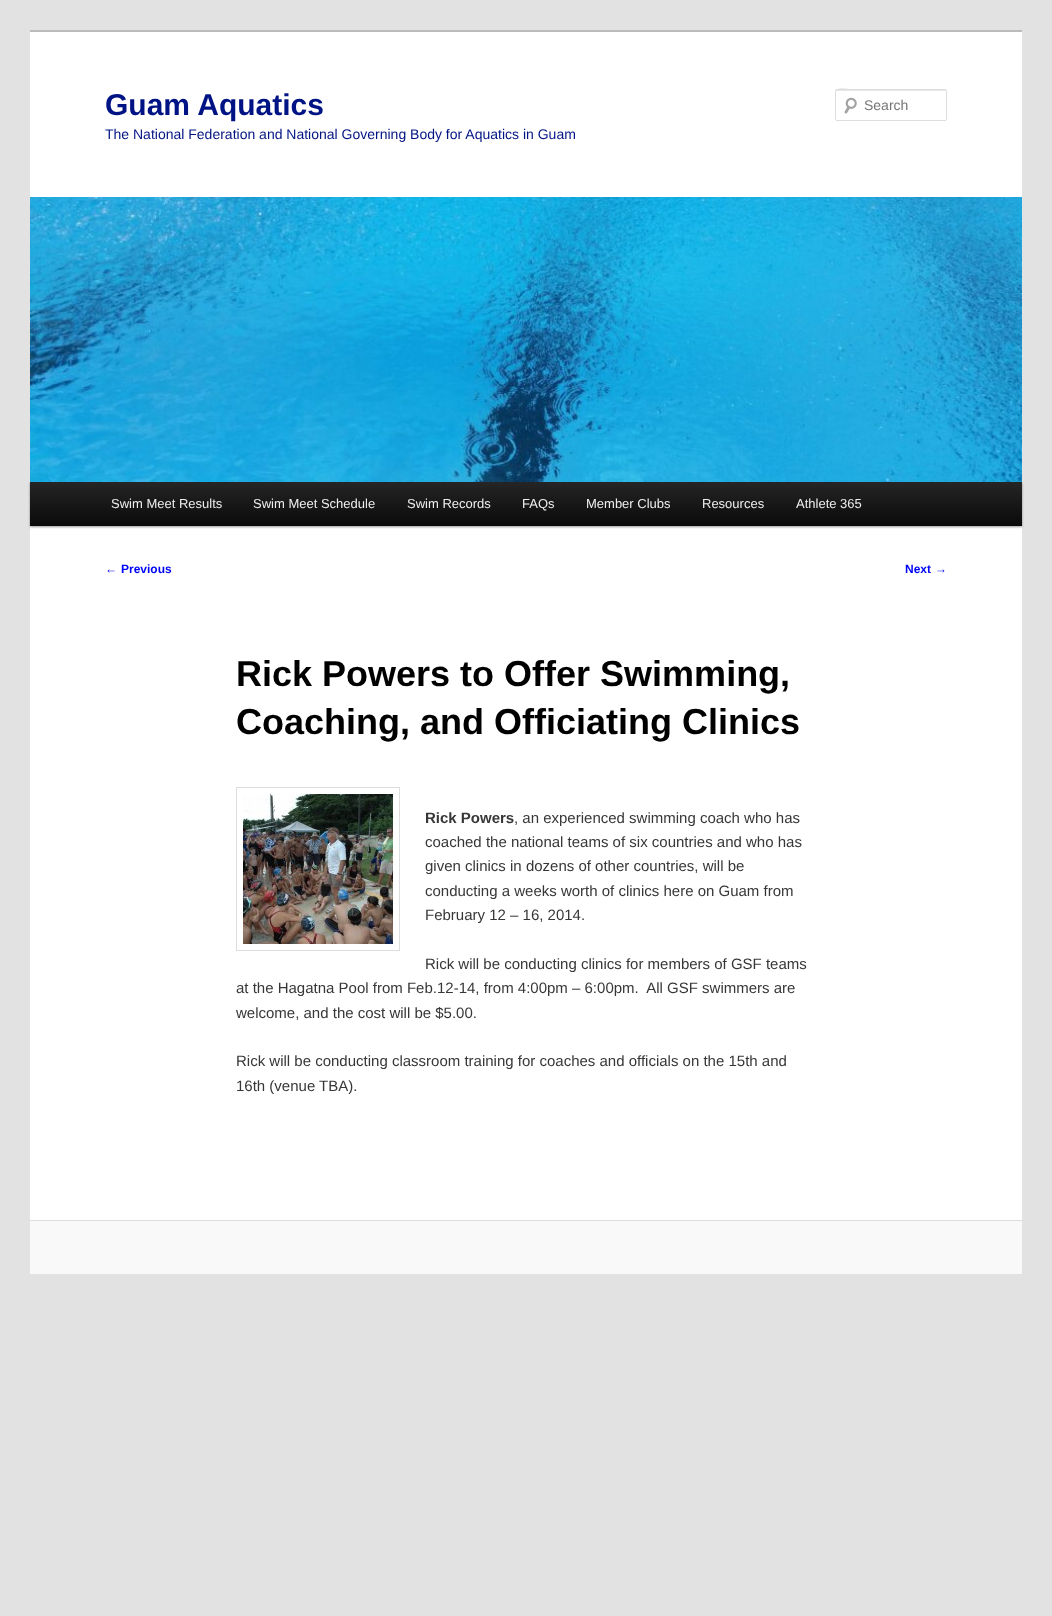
<!DOCTYPE html>
<meta charset="utf-8">
<style>body { margin: 0 } canvas { display: block }</style>
<canvas id="canvas" width="1052" height="1616"></canvas>
<img id="img1" src="images/1.png" hidden>
<img id="img2" src="images/2.png" hidden>
<img id="img3" src="images/3.png" hidden>
<script>
window.onload = function () {
    const canvas = document.getElementById('canvas');
    const context = canvas.getContext('2d');
    context.miterLimit = 4;
    context.fontKerning = 'normal';
    let gradient;

    context.fillStyle = 'rgb(226, 226, 226)';
    context.fillRect(0, 0, 1052, 1616);
    context.fillStyle = 'rgb(255, 255, 255)';
    context.fillRect(30, 32, 992, 1188);
    context.fillStyle = 'rgb(187, 187, 187)';
    context.fillRect(30, 30, 992, 2);
    context.drawImage(document.getElementById('img1'), 844, 97, 13, 17);
    context.fillStyle = 'rgb(230, 230, 230)';
    context.beginPath();
    context.moveTo(837, 91);
    context.lineTo(946, 91);
    context.lineTo(946, 92);
    context.lineTo(945, 90);
    context.lineTo(855, 90);
    context.bezierCurveTo(851, 90, 836, 85, 836, 92);
    context.bezierCurveTo(836, 91, 836, 91, 837, 91);
    context.closePath();
    context.fill();
    context.beginPath();
    context.roundRect(835.5, 89.5, 111, 31, 1.5);
    context.strokeStyle = 'rgb(221, 221, 221)';
    context.stroke();
    context.fillStyle = 'rgba(0, 0, 0, 0.4)';
    context.filter = 'blur(1px)';
    context.beginPath();
    context.rect(30, 483, 992, 44);
    context.fill();
    context.filter = 'none';
    context.drawImage(document.getElementById('img2'), 30, 197, 992, 285);
    gradient = context.createLinearGradient(526, 482, 526, 526);
    gradient.addColorStop(0, 'rgb(37, 37, 37)');
    gradient.addColorStop(1, 'rgb(10, 10, 10)');
    context.fillStyle = gradient;
    context.fillRect(30, 482, 992, 44);
    context.strokeRect(236.5, 787.5, 163, 163);
    context.drawImage(document.getElementById('img3'), 243, 794, 150, 150);
    context.fillStyle = 'rgb(249, 249, 249)';
    context.fillRect(30, 1221, 992, 53);
    context.fillStyle = 'rgb(221, 221, 221)';
    context.fillRect(30, 1220, 992, 1);
    context.font = 'bold 30px Liberation Sans';
    context.fillStyle = 'rgb(0, 19, 132)';
    context.fillText('Guam Aquatics', 105, 115);
    context.font = '14px Liberation Sans';
    context.fillText('The National Federation and National Governing Body for Aquatics in Guam', 105, 139);
    context.fillStyle = 'rgb(117, 117, 117)';
    context.fillText('Search', 864, 110);
    context.font = '13px Liberation Sans';
    context.fillStyle = 'rgb(238, 238, 238)';
    context.fillText('Swim Meet Results', 111, 508);
    context.fillText('Swim Meet Schedule', 253, 508);
    context.fillText('Swim Records', 407, 508);
    context.fillText('FAQs', 522, 508);
    context.fillText('Member Clubs', 586, 508);
    context.fillText('Resources', 702, 508);
    context.fillText('Athlete 365', 796, 508);
    context.font = '12px Liberation Sans';
    context.fillStyle = 'rgb(0, 4, 247)';
    context.fillText('←', 105, 573);
    context.font = 'bold 12px Liberation Sans';
    context.fillText('Previous', 121, 573);
    context.fillText('Next', 905, 573);
    context.font = '12px Liberation Sans';
    context.fillText('→', 935, 573);
    context.font = 'bold 36px Liberation Sans';
    context.fillStyle = 'rgb(0, 0, 0)';
    context.fillText('Rick Powers to Offer Swimming,', 236, 686);
    context.fillText('Coaching, and Officiating Clinics', 236, 734);
    context.font = 'bold 15px Liberation Sans';
    context.fillStyle = 'rgb(55, 55, 55)';
    context.fillText('Rick Powers', 425, 823);
    context.font = '15px Liberation Sans';
    context.fillText(', an experienced swimming coach who has', 514, 823);
    context.fillText('coached the national teams of six countries and who has', 425, 847);
    context.fillText('given clinics in dozens of other countries, will be', 425, 871);
    context.fillText('conducting a weeks worth of clinics here on Guam from', 425, 896);
    context.fillText('February 12 – 16, 2014.', 425, 920);
    context.fillText('Rick will be conducting clinics for members of GSF teams', 425, 969);
    context.fillText('at the Hagatna Pool from Feb.12-14, from 4:00pm – 6:00pm.  All GSF swimmers are', 236, 993);
    context.fillText('welcome, and the cost will be $5.00.', 236, 1018);
    context.fillText('Rick will be conducting classroom training for coaches and officials on the 15th and', 236, 1066);
    context.fillText('16th (venue TBA).', 236, 1091);
};
</script>
